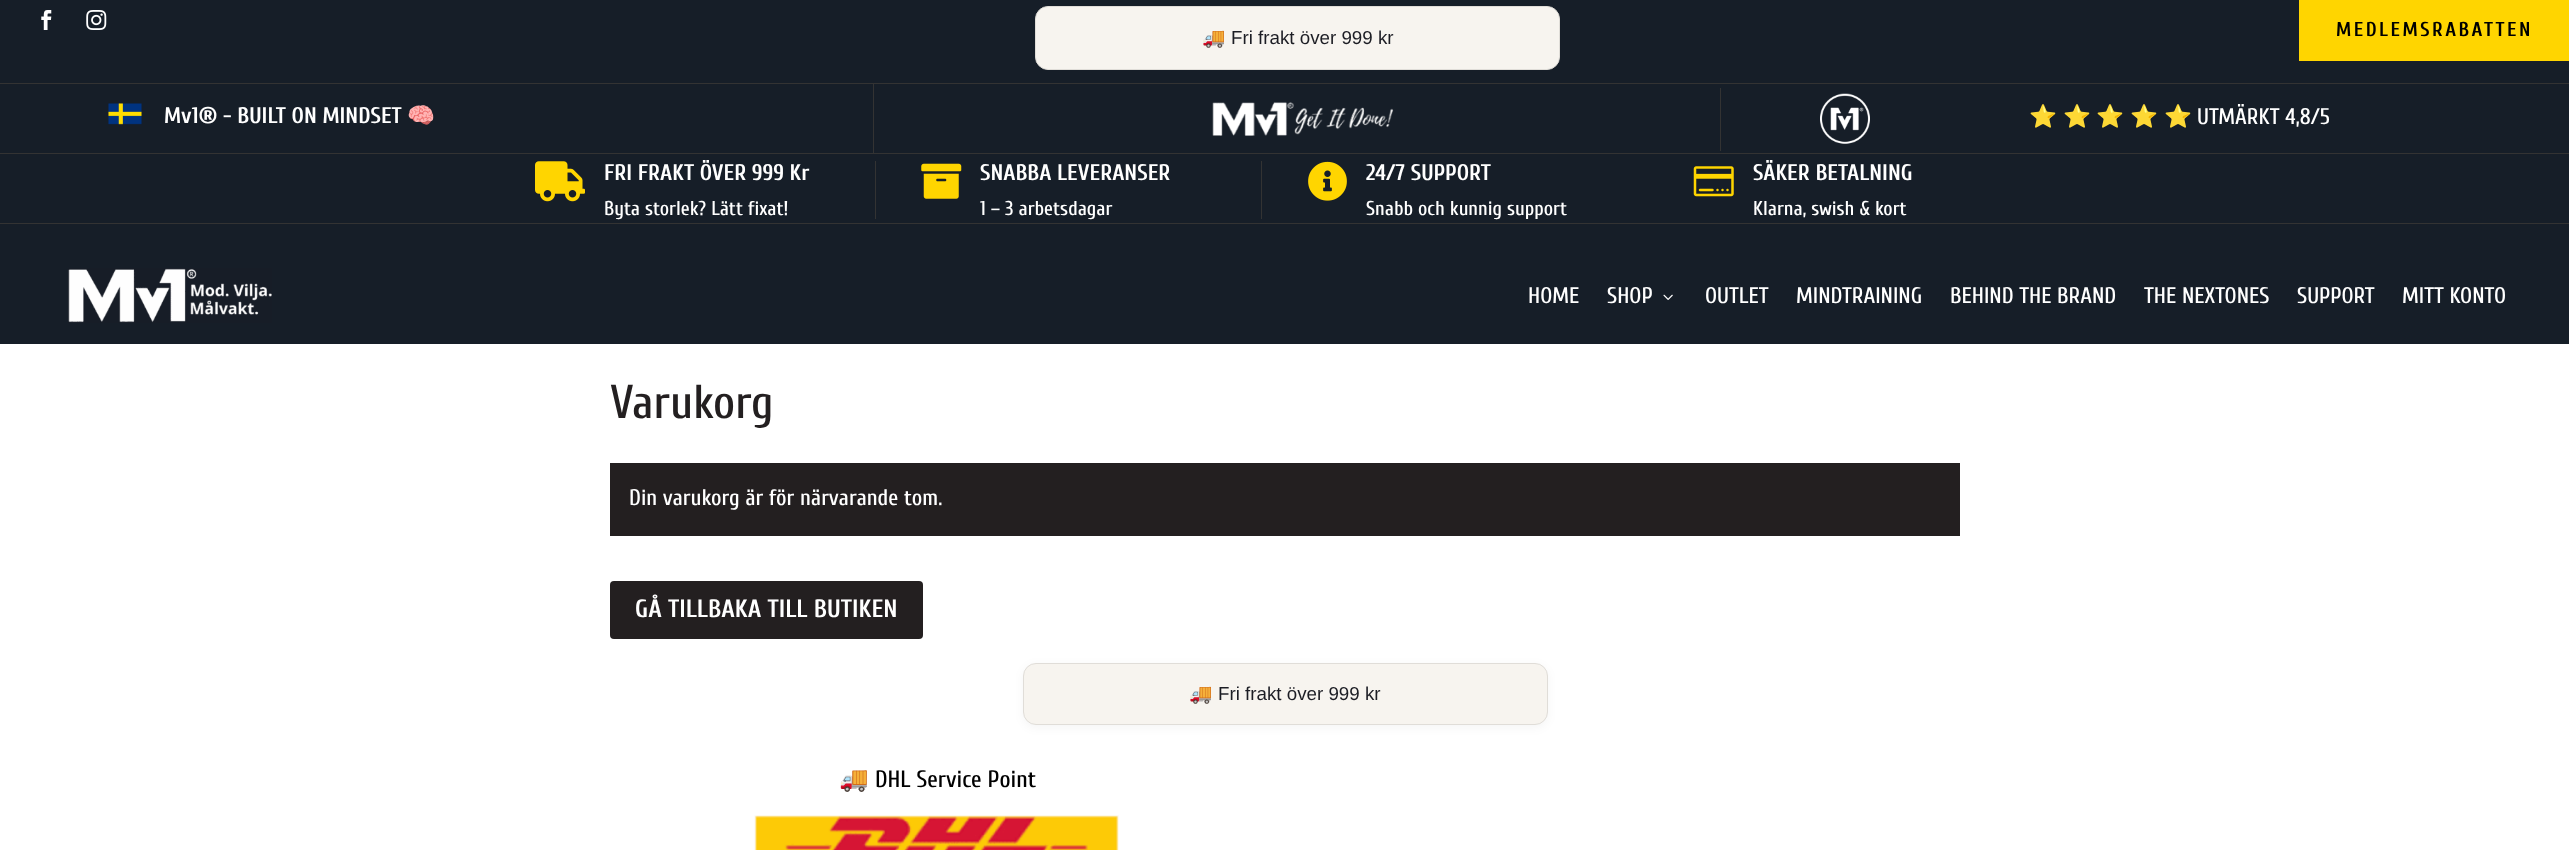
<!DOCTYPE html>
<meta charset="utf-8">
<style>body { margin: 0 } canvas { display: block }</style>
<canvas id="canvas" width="2569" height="850"></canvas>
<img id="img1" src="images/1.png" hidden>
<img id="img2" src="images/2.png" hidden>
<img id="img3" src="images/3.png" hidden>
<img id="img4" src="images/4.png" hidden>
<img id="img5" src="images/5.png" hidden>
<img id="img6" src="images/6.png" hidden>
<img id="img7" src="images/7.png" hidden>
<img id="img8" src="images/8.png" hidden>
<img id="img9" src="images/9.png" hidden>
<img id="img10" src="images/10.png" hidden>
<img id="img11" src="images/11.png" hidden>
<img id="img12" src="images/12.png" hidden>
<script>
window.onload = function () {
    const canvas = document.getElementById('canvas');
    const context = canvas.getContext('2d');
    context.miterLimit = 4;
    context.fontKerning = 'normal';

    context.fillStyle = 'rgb(255, 255, 255)';
    context.fillRect(0, 0, 2569, 850);
    context.fillStyle = 'rgb(22, 30, 40)';
    context.fillRect(0, 0, 2569, 83);
    context.fillStyle = 'rgb(51, 51, 51)';
    context.fillRect(0, 83, 2569, 1);
    context.drawImage(document.getElementById('img1'), 41, 10, 11, 20);
    context.drawImage(document.getElementById('img2'), 86, 10, 21, 20);
    context.fillStyle = 'rgb(247, 244, 239)';
    context.beginPath();
    context.roundRect(1035.5, 6.5, 524, 63, 12.5);
    context.fill();
    context.strokeStyle = 'rgb(224, 221, 216)';
    context.stroke();
    context.fillStyle = 'rgb(255, 213, 0)';
    context.fillRect(2299, 0, 270, 61);
    context.fillStyle = 'rgb(22, 30, 40)';
    context.fillRect(0, 84, 2569, 69);
    context.fillStyle = 'rgb(51, 51, 51)';
    context.fillRect(0, 153, 2569, 1);
    context.fillRect(873, 84, 1, 69);
    context.drawImage(document.getElementById('img3'), 108, 103, 34, 22);
    context.fillRect(1720, 88, 1, 63);
    context.drawImage(document.getElementById('img4'), 1212, 102, 182, 34);
    context.drawImage(document.getElementById('img5'), 1820, 93, 50, 51);
    context.fillStyle = 'rgb(22, 30, 40)';
    context.fillRect(0, 154, 2569, 69);
    context.fillStyle = 'rgb(51, 51, 51)';
    context.fillRect(0, 223, 2569, 1);
    context.fillRect(875, 161, 1, 58);
    context.drawImage(document.getElementById('img6'), 535, 161, 50, 41);
    context.fillRect(1261, 161, 1, 58);
    context.drawImage(document.getElementById('img7'), 921, 163, 41, 36);
    context.drawImage(document.getElementById('img8'), 1308, 161, 39, 40);
    context.drawImage(document.getElementById('img9'), 1693, 166, 41, 31);
    context.fillStyle = 'rgb(22, 30, 40)';
    context.fillRect(0, 224, 2569, 120);
    context.drawImage(document.getElementById('img10'), 68, 268, 204, 55);
    context.drawImage(document.getElementById('img11'), 1663, 294, 10, 6);
    context.fillStyle = 'rgb(35, 31, 32)';
    context.fillRect(610, 463, 1350, 73);
    context.beginPath();
    context.roundRect(610, 581, 313, 58, 4);
    context.fill();
    context.fillStyle = 'rgba(0, 0, 0, 0.04)';
    context.filter = 'blur(5px)';
    context.beginPath();
    context.roundRect(1023, 665, 525, 63, 13);
    context.fill();
    context.filter = 'none';
    context.fillStyle = 'rgb(247, 244, 239)';
    context.beginPath();
    context.roundRect(1023.5, 663.5, 524, 61, 12.5);
    context.fill();
    context.stroke();
    context.drawImage(document.getElementById('img12'), 754, 815, 365, 35);
    context.font = '18.75px Noto Color Emoji';
    context.fillStyle = 'rgb(28, 29, 36)';
    context.fillText('🚚', 1202, 44);
    context.font = '18.75px Liberation Sans';
    context.fillText('Fri frakt över 999 kr', 1231, 44);
    context.letterSpacing = '2.5px';
    context.font = 'bold 20px Cuprum';
    context.fillStyle = 'rgb(0, 0, 0)';
    context.fillText('MEDLEMSRABATTEN', 2336, 36);
    context.letterSpacing = '0px';
    context.font = 'bold 22.5px Cuprum';
    context.fillStyle = 'rgb(255, 255, 255)';
    context.fillText('Mv1® - BUILT ON MINDSET', 164, 123);
    context.font = 'bold 22.5px Noto Color Emoji';
    context.fillText('🧠', 407, 123);
    context.font = '22.5px Noto Color Emoji';
    context.fillText('⭐️', 2029, 124);
    context.fillText('⭐️', 2063, 124);
    context.fillText('⭐️', 2096, 124);
    context.fillText('⭐️', 2130, 124);
    context.fillText('⭐️', 2164, 124);
    context.font = '500 22.5px Cuprum';
    context.fillText('UTMÄRKT 4,8/5', 2197, 124);
    context.font = 'bold 22.5px Cuprum';
    context.fillText('FRI FRAKT ÖVER 999 Kr', 604, 180);
    context.font = '500 20px Cuprum';
    context.fillText('Byta storlek? Lätt fixat!', 604, 215);
    context.font = 'bold 22.5px Cuprum';
    context.fillText('SNABBA LEVERANSER', 980, 180);
    context.font = '500 20px Cuprum';
    context.fillText('1 – 3 arbetsdagar', 980, 215);
    context.font = 'bold 22.5px Cuprum';
    context.fillText('24/7 SUPPORT', 1366, 180);
    context.font = '500 20px Cuprum';
    context.fillText('Snabb och kunnig support', 1366, 215);
    context.font = 'bold 22.5px Cuprum';
    context.fillText('SÄKER BETALNING', 1753, 180);
    context.font = '500 20px Cuprum';
    context.fillText('Klarna, swish & kort', 1753, 215);
    context.font = '500 22.5px Cuprum';
    context.fillText('HOME', 1528, 303);
    context.fillText('SHOP', 1607, 303);
    context.fillText('OUTLET', 1705, 303);
    context.fillText('MINDTRAINING', 1796, 303);
    context.fillText('BEHIND THE BRAND', 1950, 303);
    context.fillText('THE NEXTONES', 2144, 303);
    context.fillText('SUPPORT', 2297, 303);
    context.fillText('MITT KONTO', 2402, 303);
    context.font = '500 47.5px Cuprum';
    context.fillStyle = 'rgb(35, 31, 32)';
    context.fillText('Varukorg', 610, 418);
    context.font = '500 22.5px Cuprum';
    context.fillStyle = 'rgb(255, 255, 255)';
    context.fillText('Din varukorg är för närvarande tom.', 629, 505);
    context.font = 'bold 25px Cuprum';
    context.fillText('GÅ TILLBAKA TILL BUTIKEN', 635, 617);
    context.font = '18.75px Noto Color Emoji';
    context.fillStyle = 'rgb(28, 29, 36)';
    context.fillText('🚚', 1189, 700);
    context.font = '18.75px Liberation Sans';
    context.fillText('Fri frakt över 999 kr', 1218, 700);
    context.font = '23.75px Noto Color Emoji';
    context.fillStyle = 'rgb(0, 0, 0)';
    context.fillText('🚚', 839, 787);
    context.font = '500 23.75px Cuprum';
    context.fillText('DHL Service Point', 875, 787);
};
</script>
